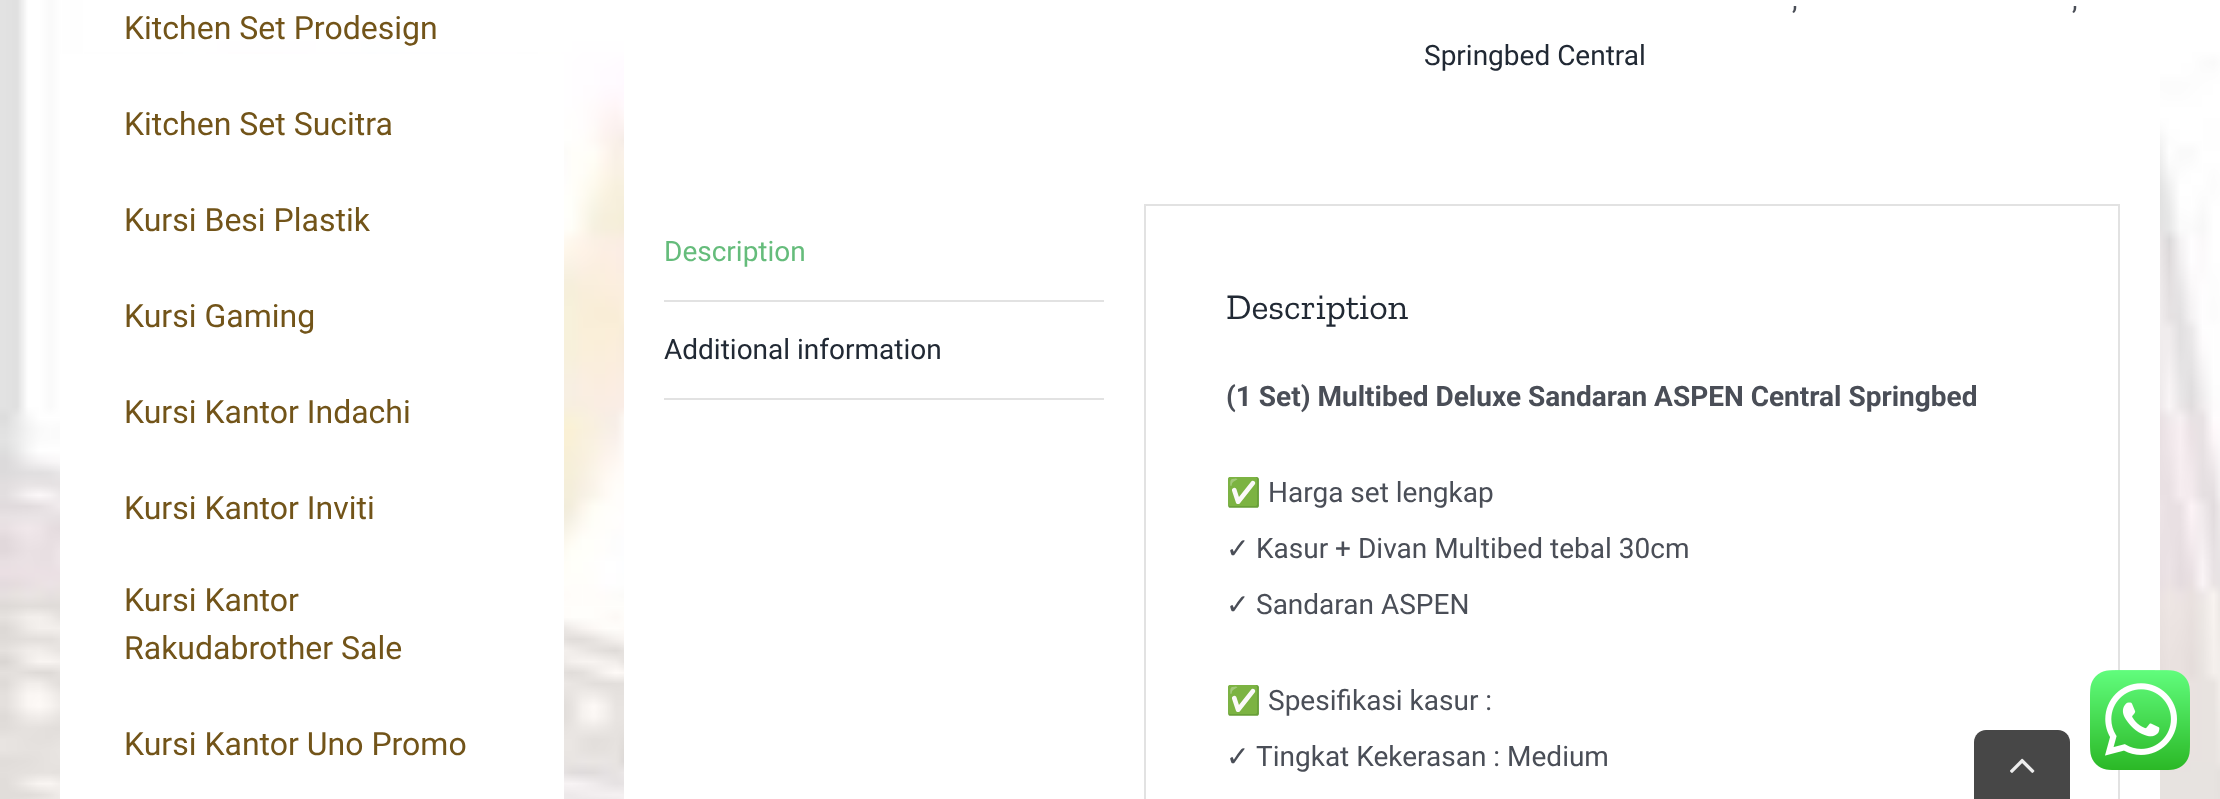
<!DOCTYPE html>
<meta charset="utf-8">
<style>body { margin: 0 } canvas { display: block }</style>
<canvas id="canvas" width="2220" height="799"></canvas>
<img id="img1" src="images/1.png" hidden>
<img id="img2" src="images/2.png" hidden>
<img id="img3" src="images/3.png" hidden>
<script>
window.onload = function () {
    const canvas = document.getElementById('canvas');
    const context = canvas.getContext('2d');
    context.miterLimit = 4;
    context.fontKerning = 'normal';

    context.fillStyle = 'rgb(255, 255, 255)';
    context.fillRect(0, 0, 2220, 799);
    context.drawImage(document.getElementById('img1'), 0, 0, 2220, 799);
    context.fillRect(60, 54, 504, 745);
    context.fillRect(624, 0, 1536, 799);
    context.fillStyle = 'rgb(226, 226, 226)';
    context.fillRect(664, 300, 440, 2);
    context.fillRect(664, 398, 440, 2);
    context.strokeStyle = 'rgb(226, 226, 226)';
    context.lineWidth = 2;
    context.strokeRect(1145, 205, 974, 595);
    context.drawImage(document.getElementById('img2'), 2090, 670, 100, 100);
    context.fillStyle = 'rgb(71, 71, 71)';
    context.beginPath();
    context.moveTo(1986, 730);
    context.lineTo(2058, 730);
    context.bezierCurveTo(2064.5, 730, 2070, 735.5, 2070, 742);
    context.lineTo(2070, 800);
    context.lineTo(1974, 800);
    context.lineTo(1974, 742);
    context.bezierCurveTo(1974, 735.5, 1979.5, 730, 1986, 730);
    context.closePath();
    context.fill();
    context.drawImage(document.getElementById('img3'), 2010, 758, 25, 15);
    context.font = '32px Roboto';
    context.fillStyle = 'rgb(114, 84, 25)';
    context.fillText('Kitchen Set Prodesign', 124, 39);
    context.fillText('Kitchen Set Sucitra', 124, 135);
    context.fillText('Kursi Besi Plastik', 124, 231);
    context.fillText('Kursi Gaming', 124, 327);
    context.fillText('Kursi Kantor Indachi', 124, 423);
    context.fillText('Kursi Kantor Inviti', 124, 519);
    context.fillText('Kursi Kantor', 124, 611);
    context.fillText('Rakudabrother Sale', 124, 659);
    context.fillText('Kursi Kantor Uno Promo', 124, 755);
    context.font = '28px Roboto';
    context.fillStyle = 'rgb(74, 78, 87)';
    context.fillText(',', 1792, 9);
    context.fillText(',', 2072, 9);
    context.fillStyle = 'rgb(33, 41, 52)';
    context.fillText('Springbed Central', 1424, 65);
    context.fillStyle = 'rgb(101, 188, 123)';
    context.fillText('Description', 664, 261);
    context.fillStyle = 'rgb(33, 41, 52)';
    context.fillText('Additional information', 664, 359);
    context.font = '36px Zilla Slab';
    context.fillText('Description', 1226, 319);
    context.font = 'bold 28px Roboto';
    context.fillStyle = 'rgb(74, 78, 87)';
    context.fillText('(1 Set) Multibed Deluxe Sandaran ASPEN Central Springbed', 1226, 406);
    context.font = '28px Noto Color Emoji';
    context.fillText('✅', 1226, 502);
    context.font = '28px Roboto';
    context.fillText('Harga set lengkap', 1268, 502);
    context.font = '28px DejaVu Sans';
    context.fillText('✓', 1226, 558);
    context.font = '28px Roboto';
    context.fillText('Kasur + Divan Multibed tebal 30cm', 1256, 558);
    context.font = '28px DejaVu Sans';
    context.fillText('✓', 1226, 614);
    context.font = '28px Roboto';
    context.fillText('Sandaran ASPEN', 1256, 614);
    context.font = '28px Noto Color Emoji';
    context.fillText('✅', 1226, 710);
    context.font = '28px Roboto';
    context.fillText('Spesifikasi kasur :', 1268, 710);
    context.font = '28px DejaVu Sans';
    context.fillText('✓', 1226, 766);
    context.font = '28px Roboto';
    context.fillText('Tingkat Kekerasan : Medium', 1256, 766);
};
</script>
